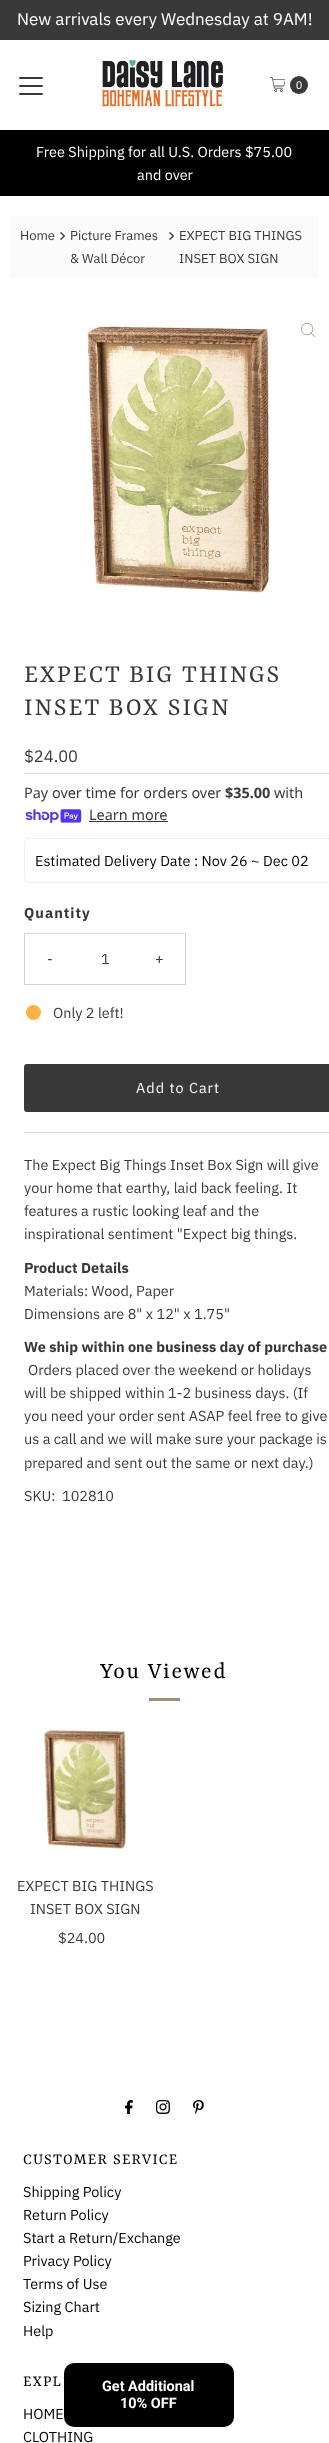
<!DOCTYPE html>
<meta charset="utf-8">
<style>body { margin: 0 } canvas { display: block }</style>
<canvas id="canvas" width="329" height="2443"></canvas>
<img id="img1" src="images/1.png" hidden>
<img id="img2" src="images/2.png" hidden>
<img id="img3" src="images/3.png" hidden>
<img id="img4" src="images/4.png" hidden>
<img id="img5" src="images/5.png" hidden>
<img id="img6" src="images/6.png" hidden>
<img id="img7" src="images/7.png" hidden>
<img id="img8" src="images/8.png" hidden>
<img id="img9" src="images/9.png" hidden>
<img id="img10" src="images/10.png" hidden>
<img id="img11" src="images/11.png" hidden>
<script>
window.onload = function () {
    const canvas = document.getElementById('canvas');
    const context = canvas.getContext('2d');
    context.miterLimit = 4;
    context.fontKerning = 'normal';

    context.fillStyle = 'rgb(255, 255, 255)';
    context.fillRect(0, 0, 329, 2443);
    context.fillStyle = 'rgb(57, 57, 57)';
    context.fillRect(0, 0, 329, 40);
    context.drawImage(document.getElementById('img1'), 19, 77, 24, 18);
    context.drawImage(document.getElementById('img2'), 101, 59, 123, 50);
    context.drawImage(document.getElementById('img3'), 270, 77, 15, 15);
    context.beginPath();
    context.arc(299, 85, 9, 0, 2 * Math.PI);
    context.fill();
    context.fillStyle = 'rgb(0, 0, 0)';
    context.fillRect(0, 130, 329, 66);
    context.fillStyle = 'rgb(251, 251, 251)';
    context.fillRect(10, 216, 309, 62);
    context.drawImage(document.getElementById('img4'), 60, 232, 5, 8);
    context.drawImage(document.getElementById('img4'), 169, 232, 5, 8);
    context.drawImage(document.getElementById('img5'), 86, 326, 185, 267);
    context.drawImage(document.getElementById('img6'), 301, 323, 14, 14);
    context.fillStyle = 'rgb(213, 213, 213)';
    context.fillRect(24, 773, 305, 1);
    context.drawImage(document.getElementById('img7'), 25, 809, 57, 14);
    context.fillStyle = 'rgb(57, 57, 57)';
    context.fillRect(89, 821, 79, 1);
    context.beginPath();
    context.moveTo(28, 838.5);
    context.lineTo(328, 838.5);
    context.bezierCurveTo(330, 838.5, 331.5, 840, 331.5, 842);
    context.lineTo(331.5, 879);
    context.bezierCurveTo(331.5, 881, 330, 882.5, 328, 882.5);
    context.lineTo(28, 882.5);
    context.bezierCurveTo(26, 882.5, 24.5, 881, 24.5, 879);
    context.lineTo(24.5, 842);
    context.bezierCurveTo(24.5, 840, 26, 838.5, 28, 838.5);
    context.closePath();
    context.strokeStyle = 'rgb(226, 226, 226)';
    context.setLineDash([1, 1]);
    context.stroke();
    context.strokeStyle = 'rgb(213, 213, 213)';
    context.setLineDash([]);
    context.strokeRect(24.5, 933.5, 161, 51);
    context.fillStyle = 'rgb(255, 176, 66)';
    context.beginPath();
    context.arc(33.5, 1012.5, 7.5, 0, 2 * Math.PI);
    context.fill();
    context.fillStyle = 'rgb(213, 213, 213)';
    context.fillRect(24, 1132, 305, 1);
    context.fillStyle = 'rgb(57, 57, 57)';
    context.beginPath();
    context.roundRect(24, 1064, 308, 48, 3);
    context.fill();
    context.fillStyle = 'rgb(159, 144, 112)';
    context.fillRect(149, 1698, 31, 3);
    context.drawImage(document.getElementById('img8'), 44, 1730, 83, 119);
    context.drawImage(document.getElementById('img9'), 125, 2100, 8, 14);
    context.drawImage(document.getElementById('img10'), 156, 2100, 14, 14);
    context.drawImage(document.getElementById('img11'), 193, 2100, 11, 14);
    context.fillStyle = 'rgb(0, 0, 0)';
    context.beginPath();
    context.roundRect(64, 2363, 170, 64, 10);
    context.fill();
    context.font = '17px IBM Plex Sans';
    context.fillStyle = 'rgb(255, 255, 255)';
    context.fillText('New arrivals every Wednesday at 9AM!', 17, 25);
    context.font = '11px Liberation Sans';
    context.fillText('0', 296, 89);
    context.font = '14.45px IBM Plex Sans';
    context.fillText('Free Shipping for all U.S. Orders $75.00', 36, 157);
    context.fillText('and over', 137, 180);
    context.font = '13px IBM Plex Sans';
    context.fillStyle = 'rgb(57, 57, 57)';
    context.fillText('Home', 20, 240);
    context.fillText('Picture Frames', 70, 240);
    context.fillText('& Wall Décor', 70, 263);
    context.fillText('EXPECT BIG THINGS', 179, 240);
    context.fillText('INSET BOX SIGN', 179, 263);
    context.letterSpacing = '2px';
    context.font = '27.25px Yrsa';
    context.fillText('EXPECT BIG THINGS', 24, 682);
    context.fillText('INSET BOX SIGN', 24, 715);
    context.letterSpacing = '0px';
    context.font = '16.5px IBM Plex Sans';
    context.fillText('$24.00', 24, 762);
    context.font = '14.45px Noto Sans';
    context.fillText('Pay over time for orders over', 24, 798);
    context.font = 'bold 14.45px Noto Sans';
    context.fillText('$35.00', 225, 798);
    context.font = '14.45px Noto Sans';
    context.fillText('with', 274, 798);
    context.fillText('Learn more', 89, 820);
    context.font = '14.45px IBM Plex Sans';
    context.fillStyle = 'rgb(0, 0, 0)';
    context.fillText('Estimated Delivery Date : Nov 26 ~ Dec 02', 35, 866);
    context.letterSpacing = '1px';
    context.font = 'bold 14.45px IBM Plex Sans';
    context.fillStyle = 'rgb(57, 57, 57)';
    context.fillText('Quantity', 24, 918);
    context.font = '14.45px IBM Plex Sans';
    context.fillText('-', 47, 964);
    context.letterSpacing = '0px';
    context.fillText('1', 101, 964);
    context.letterSpacing = '1px';
    context.fillText('+', 155, 964);
    context.letterSpacing = '0px';
    context.fillText('Only 2 left!', 53, 1018);
    context.letterSpacing = '1px';
    context.fillStyle = 'rgb(255, 255, 255)';
    context.fillText('Add to Cart', 136, 1093);
    context.letterSpacing = '0px';
    context.fillStyle = 'rgb(57, 57, 57)';
    context.fillText('The Expect Big Things Inset Box Sign will give', 24, 1170);
    context.fillText('your home that earthy, laid back feeling. It', 24, 1193);
    context.fillText('features a rustic looking leaf and the', 24, 1216);
    context.fillText('inspirational sentiment "Expect big things.', 24, 1239);
    context.font = 'bold 14.45px IBM Plex Sans';
    context.fillText('Product Details', 24, 1273);
    context.font = '14.45px IBM Plex Sans';
    context.fillText('Materials: Wood, Paper', 24, 1296);
    context.fillText('Dimensions are 8" x 12" x 1.75"', 24, 1319);
    context.font = 'bold 14.45px IBM Plex Sans';
    context.fillText('We ship within one business day of purchase', 24, 1352);
    context.font = '14.45px IBM Plex Sans';
    context.fillText('Orders placed over the weekend or holidays', 28, 1375);
    context.fillText('will be shipped within 1-2 business days. (If', 24, 1398);
    context.fillText('you need your order sent ASAP feel free to give', 24, 1421);
    context.fillText('us a call and we will make sure your package is', 24, 1444);
    context.fillText('prepared and sent out the same or next day.)', 24, 1468);
    context.fillText('SKU:', 24, 1501);
    context.fillText('102810', 62, 1501);
    context.letterSpacing = '1.8px';
    context.font = '24.5px Yrsa';
    context.fillStyle = 'rgb(0, 0, 0)';
    context.fillText('You Viewed', 100, 1678);
    context.letterSpacing = '0px';
    context.font = '14.45px IBM Plex Sans';
    context.fillStyle = 'rgb(57, 57, 57)';
    context.fillText('EXPECT BIG THINGS', 17, 1891);
    context.fillText('INSET BOX SIGN', 30, 1914);
    context.fillText('$24.00', 58, 1943);
    context.letterSpacing = '1.25px';
    context.font = '16.5px Yrsa';
    context.fillStyle = 'rgb(0, 0, 0)';
    context.fillText('CUSTOMER SERVICE', 23, 2164);
    context.letterSpacing = '0px';
    context.font = '14.45px IBM Plex Sans';
    context.fillText('Shipping Policy', 23, 2197);
    context.fillText('Return Policy', 23, 2220);
    context.fillText('Start a Return/Exchange', 23, 2243);
    context.fillText('Privacy Policy', 23, 2266);
    context.fillText('Terms of Use', 23, 2289);
    context.fillText('Sizing Chart', 23, 2312);
    context.fillText('Help', 23, 2336);
    context.letterSpacing = '1.25px';
    context.font = '16.5px Yrsa';
    context.fillText('EXPL', 23, 2386);
    context.letterSpacing = '0px';
    context.font = '14.45px IBM Plex Sans';
    context.fillText('HOME', 23, 2419);
    context.fillText('CLOTHING', 23, 2442);
    context.font = 'bold 14.45px Roboto';
    context.fillStyle = 'rgb(255, 255, 255)';
    context.fillText('Get Additional', 102, 2391);
    context.fillText('10% OFF', 120, 2408);
};
</script>
